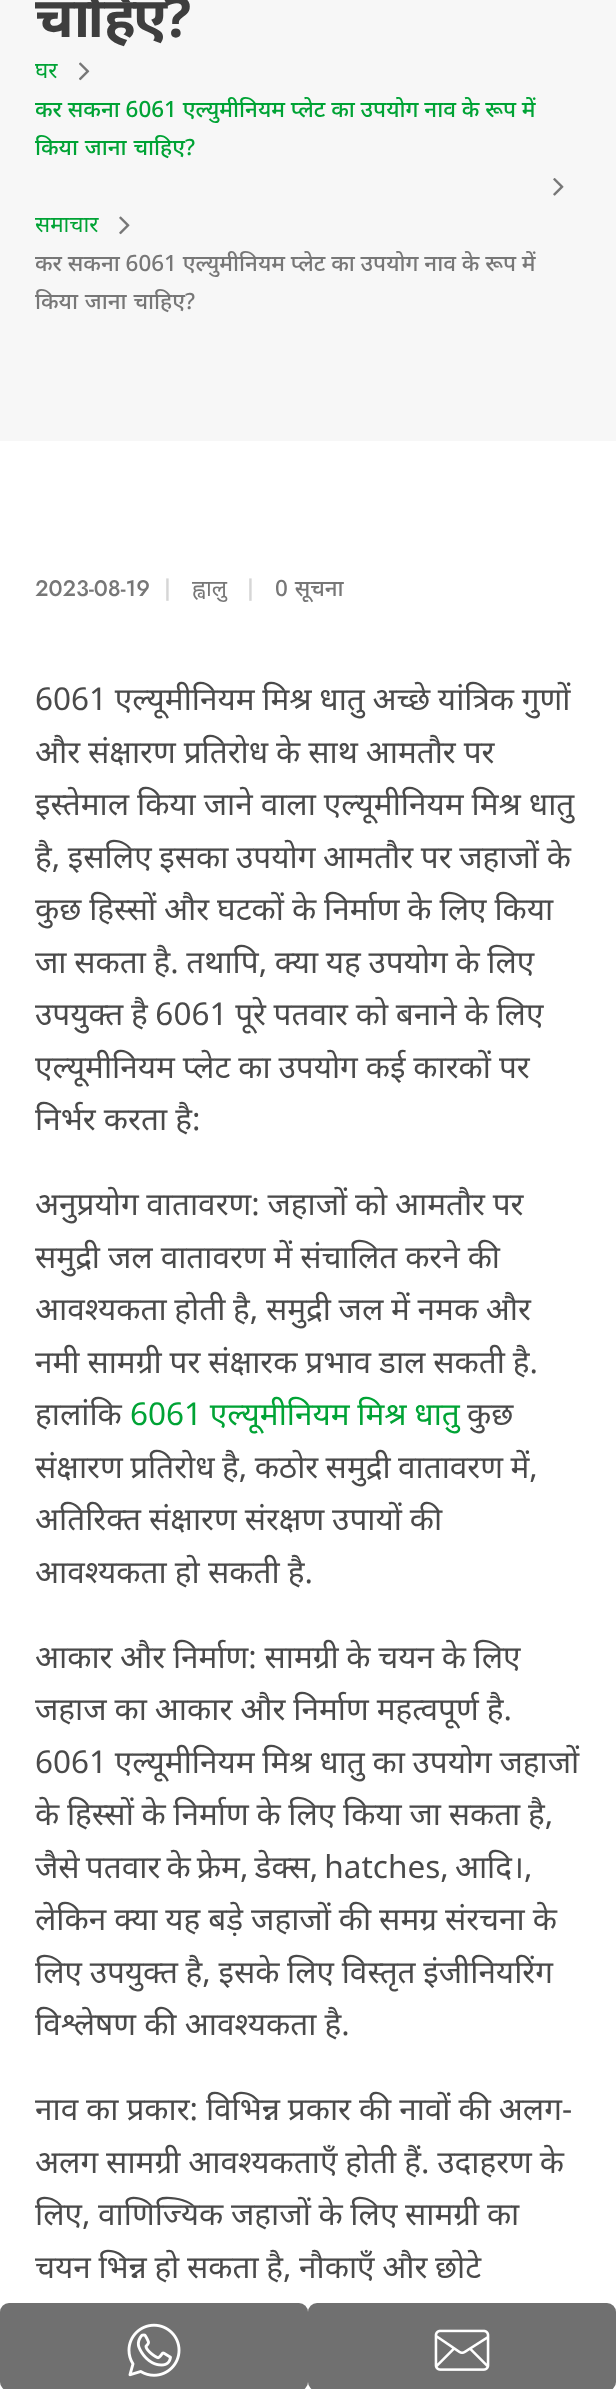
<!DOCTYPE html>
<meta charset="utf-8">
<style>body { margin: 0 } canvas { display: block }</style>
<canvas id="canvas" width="616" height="2389"></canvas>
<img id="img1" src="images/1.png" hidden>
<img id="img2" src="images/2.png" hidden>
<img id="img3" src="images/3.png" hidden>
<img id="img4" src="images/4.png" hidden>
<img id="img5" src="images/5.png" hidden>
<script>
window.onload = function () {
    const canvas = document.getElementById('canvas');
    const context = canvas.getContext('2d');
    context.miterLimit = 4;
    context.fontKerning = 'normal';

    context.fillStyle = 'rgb(255, 255, 255)';
    context.fillRect(0, 0, 616, 2389);
    context.fillStyle = 'rgb(247, 247, 247)';
    context.fillRect(0, 0, 616, 441);
    context.drawImage(document.getElementById('img1'), 79, 62, 11, 19);
    context.drawImage(document.getElementById('img2'), 553, 178, 11, 18);
    context.drawImage(document.getElementById('img3'), 119, 216, 11, 19);
    context.fillStyle = 'rgba(64, 64, 64, 0.75)';
    context.beginPath();
    context.roundRect(0, 2303, 308, 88, 9);
    context.fill();
    context.drawImage(document.getElementById('img4'), 127, 2323, 54, 54);
    context.beginPath();
    context.roundRect(308, 2303, 308, 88, 9);
    context.fill();
    context.drawImage(document.getElementById('img5'), 434, 2329, 56, 42);
    context.letterSpacing = '-2.75px';
    context.font = 'bold 56px Noto Sans';
    context.fillStyle = 'rgb(62, 62, 62)';
    context.fillText('चाहिए?', 35, 37);
    context.letterSpacing = '0px';
    context.font = '22.4px Noto Sans';
    context.fillStyle = 'rgb(0, 163, 53)';
    context.fillText('घर', 35, 78);
    context.font = '500 22.4px Noto Sans';
    context.fillText('कर सकना 6061 एल्युमीनियम प्लेट का उपयोग नाव के रूप में', 35, 117);
    context.wordSpacing = '1px';
    context.fillText('किया जाना चाहिए?', 35, 155);
    context.wordSpacing = '0px';
    context.font = '22.4px Noto Sans';
    context.fillText('समाचार', 35, 232);
    context.font = '500 22.4px Noto Sans';
    context.fillStyle = 'rgb(119, 119, 119)';
    context.fillText('कर सकना 6061 एल्युमीनियम प्लेट का उपयोग नाव के रूप में', 35, 271);
    context.wordSpacing = '1px';
    context.fillText('किया जाना चाहिए?', 35, 309);
    context.wordSpacing = '0px';
    context.font = '500 22.4px Jost';
    context.fillText('2023-08-19', 35, 596);
    context.fillStyle = 'rgb(214, 214, 214)';
    context.fillText('|', 164, 596);
    context.font = '22.4px Noto Sans';
    context.fillStyle = 'rgb(119, 119, 119)';
    context.fillText('ह्वालु', 192, 596);
    context.font = '500 22.4px Jost';
    context.fillStyle = 'rgb(214, 214, 214)';
    context.fillText('|', 247, 596);
    context.wordSpacing = '1px';
    context.font = '500 22.4px Noto Sans';
    context.fillStyle = 'rgb(119, 119, 119)';
    context.fillText('0 सूचना', 275, 596);
    context.wordSpacing = '-0.5px';
    context.font = '31.5px Noto Sans';
    context.fillStyle = 'rgb(74, 74, 74)';
    context.fillText('6061 एल्यूमीनियम मिश्र धातु अच्छे यांत्रिक गुणों', 35, 710);
    context.wordSpacing = '-0.25px';
    context.fillText('और संक्षारण प्रतिरोध के साथ आमतौर पर', 35, 763);
    context.fillText('इस्तेमाल किया जाने वाला एल्यूमीनियम मिश्र धातु', 35, 815);
    context.wordSpacing = '-0.5px';
    context.fillText('है, इसलिए इसका उपयोग आमतौर पर जहाजों के', 35, 868);
    context.wordSpacing = '-0.25px';
    context.fillText('कुछ हिस्सों और घटकों के निर्माण के लिए किया', 35, 920);
    context.wordSpacing = '-0.5px';
    context.fillText('जा सकता है. तथापि, क्या यह उपयोग के लिए', 35, 973);
    context.fillText('उपयुक्त है 6061 पूरे पतवार को बनाने के लिए', 35, 1025);
    context.wordSpacing = '-0.25px';
    context.fillText('एल्यूमीनियम प्लेट का उपयोग कई कारकों पर', 35, 1078);
    context.wordSpacing = '0px';
    context.fillText('निर्भर करता है:', 35, 1130);
    context.wordSpacing = '-0.5px';
    context.fillText('अनुप्रयोग वातावरण: जहाजों को आमतौर पर', 35, 1215);
    context.wordSpacing = '-0.25px';
    context.fillText('समुद्री जल वातावरण में संचालित करने की', 35, 1268);
    context.wordSpacing = '-0.5px';
    context.fillText('आवश्यकता होती है, समुद्री जल में नमक और', 35, 1320);
    context.wordSpacing = '-0.25px';
    context.fillText('नमी सामग्री पर संक्षारक प्रभाव डाल सकती है.', 35, 1373);
    context.wordSpacing = '0px';
    context.fillText('हालांकि', 35, 1425);
    context.wordSpacing = '-0.5px';
    context.fillStyle = 'rgb(0, 163, 53)';
    context.fillText('6061 एल्यूमीनियम मिश्र धातु', 130, 1425);
    context.wordSpacing = '0px';
    context.fillStyle = 'rgb(74, 74, 74)';
    context.fillText('कुछ', 467, 1425);
    context.wordSpacing = '-0.75px';
    context.fillText('संक्षारण प्रतिरोध है, कठोर समुद्री वातावरण में,', 35, 1478);
    context.wordSpacing = '-0.25px';
    context.fillText('अतिरिक्त संक्षारण संरक्षण उपायों की', 35, 1530);
    context.wordSpacing = '0px';
    context.fillText('आवश्यकता हो सकती है.', 35, 1583);
    context.wordSpacing = '-0.5px';
    context.fillText('आकार और निर्माण: सामग्री के चयन के लिए', 35, 1668);
    context.wordSpacing = '-0.25px';
    context.fillText('जहाज का आकार और निर्माण महत्वपूर्ण है.', 35, 1720);
    context.wordSpacing = '-0.5px';
    context.fillText('6061 एल्यूमीनियम मिश्र धातु का उपयोग जहाजों', 35, 1773);
    context.fillText('के हिस्सों के निर्माण के लिए किया जा सकता है,', 35, 1825);
    context.wordSpacing = '-2px';
    context.fillText('जैसे पतवार के फ्रेम, डेक्स, hatches, आदि।,', 35, 1878);
    context.wordSpacing = '-0.25px';
    context.fillText('लेकिन क्या यह बड़े जहाजों की समग्र संरचना के', 35, 1930);
    context.wordSpacing = '-0.5px';
    context.fillText('लिए उपयुक्त है, इसके लिए विस्तृत इंजीनियरिंग', 35, 1983);
    context.wordSpacing = '0px';
    context.fillText('विश्लेषण की आवश्यकता है.', 35, 2035);
    context.wordSpacing = '-0.25px';
    context.fillText('नाव का प्रकार: विभिन्न प्रकार की नावों की अलग-', 35, 2120);
    context.fillText('अलग सामग्री आवश्यकताएँ होती हैं. उदाहरण के', 35, 2173);
    context.wordSpacing = '-0.5px';
    context.fillText('लिए, वाणिज्यिक जहाजों के लिए सामग्री का', 35, 2225);
    context.fillText('चयन भिन्न हो सकता है, नौकाएँ और छोटे', 35, 2278);
};
</script>
